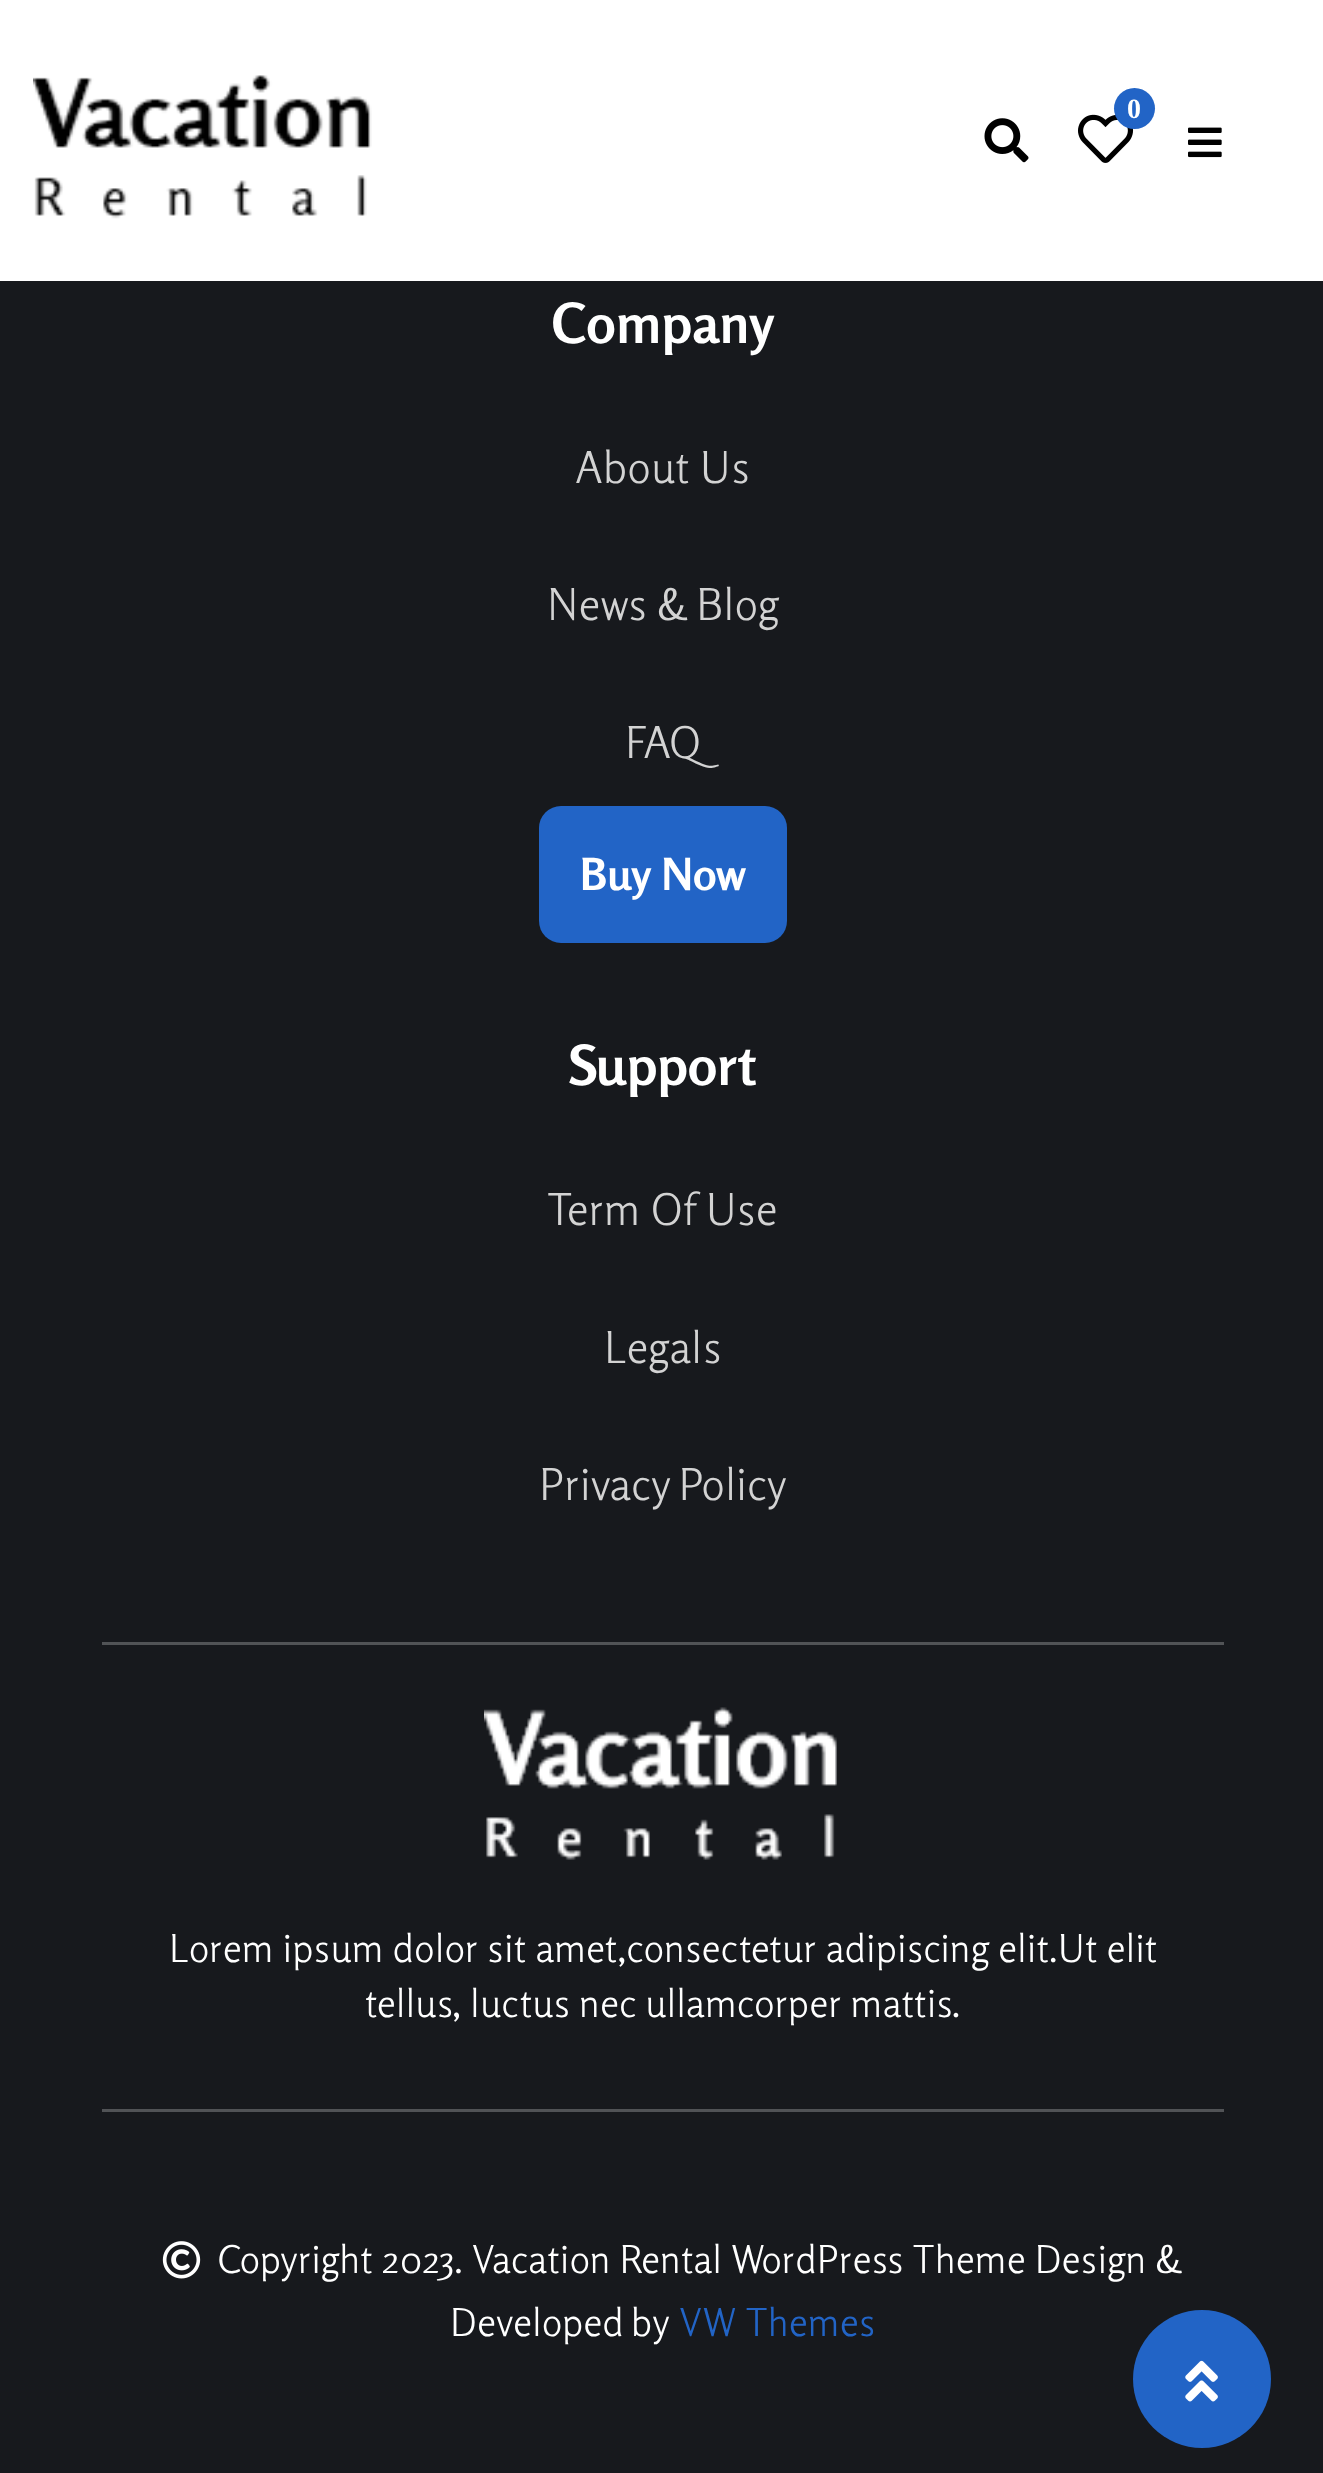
<!DOCTYPE html>
<meta charset="utf-8">
<style>body { margin: 0 } canvas { display: block }</style>
<canvas id="canvas" width="1323" height="2473"></canvas>
<img id="img1" src="images/1.png" hidden>
<img id="img2" src="images/2.png" hidden>
<img id="img3" src="images/3.png" hidden>
<img id="img4" src="images/4.png" hidden>
<img id="img5" src="images/5.png" hidden>
<img id="img6" src="images/6.png" hidden>
<img id="img7" src="images/7.png" hidden>
<script>
window.onload = function () {
    const canvas = document.getElementById('canvas');
    const context = canvas.getContext('2d');
    context.miterLimit = 4;
    context.fontKerning = 'normal';

    context.fillStyle = 'rgb(23, 25, 29)';
    context.fillRect(0, 0, 1323, 2473);
    context.fillStyle = 'rgb(255, 255, 255)';
    context.fillRect(0, 0, 1323, 281);
    context.drawImage(document.getElementById('img1'), 33, 75, 339, 144);
    context.drawImage(document.getElementById('img2'), 1078, 114, 56, 49);
    context.fillStyle = 'rgb(34, 100, 198)';
    context.beginPath();
    context.arc(1134.5, 108.5, 20.5, 0, 2 * Math.PI);
    context.fill();
    context.drawImage(document.getElementById('img3'), 984, 118, 45, 45);
    context.drawImage(document.getElementById('img4'), 1188, 127, 34, 31);
    context.beginPath();
    context.roundRect(539, 806, 248, 137, 22);
    context.fill();
    context.fillStyle = 'rgb(81, 83, 86)';
    context.fillRect(102, 1642, 1122, 3);
    context.drawImage(document.getElementById('img5'), 484, 1707, 353, 153);
    context.fillRect(102, 2109, 1122, 3);
    context.drawImage(document.getElementById('img6'), 162, 2241, 39, 38);
    context.fillStyle = 'rgb(34, 100, 198)';
    context.beginPath();
    context.arc(1202, 2379, 69, 0, 2 * Math.PI);
    context.fill();
    context.drawImage(document.getElementById('img7'), 1185, 2360, 33, 42);
    context.font = 'bold 28px Liberation Serif';
    context.fillStyle = 'rgb(255, 255, 255)';
    context.fillText('0', 1127, 118);
    context.font = 'bold 55px Rosario';
    context.fillText('Company', 552, 343);
    context.font = '300 44px Rosario';
    context.fillStyle = 'rgb(211, 211, 211)';
    context.fillText('About Us', 575, 483);
    context.fillText('News & Blog', 547, 620);
    context.fillText('FAQ', 625, 758);
    context.font = 'bold 44px Rosario';
    context.fillStyle = 'rgb(255, 255, 255)';
    context.fillText('Buy Now', 580, 890);
    context.font = 'bold 55px Rosario';
    context.fillText('Support', 569, 1085);
    context.font = '300 44px Rosario';
    context.fillStyle = 'rgb(211, 211, 211)';
    context.fillText('Term Of Use', 547, 1225);
    context.fillText('Legals', 604, 1363);
    context.fillText('Privacy Policy', 539, 1500);
    context.font = '300 38.5px Rosario';
    context.fillStyle = 'rgb(255, 255, 255)';
    context.fillText('Lorem ipsum dolor sit amet,consectetur adipiscing elit.Ut elit', 169, 1962);
    context.fillText('tellus, luctus nec ullamcorper mattis.', 365, 2017);
    context.fillText('Copyright 2023. Vacation Rental WordPress Theme Design &', 217, 2273);
    context.wordSpacing = '-2px';
    context.fillText('Developed by', 450, 2336);
    context.wordSpacing = '0px';
    context.fillStyle = 'rgb(34, 100, 198)';
    context.fillText('VW Themes', 679, 2336);
};
</script>
